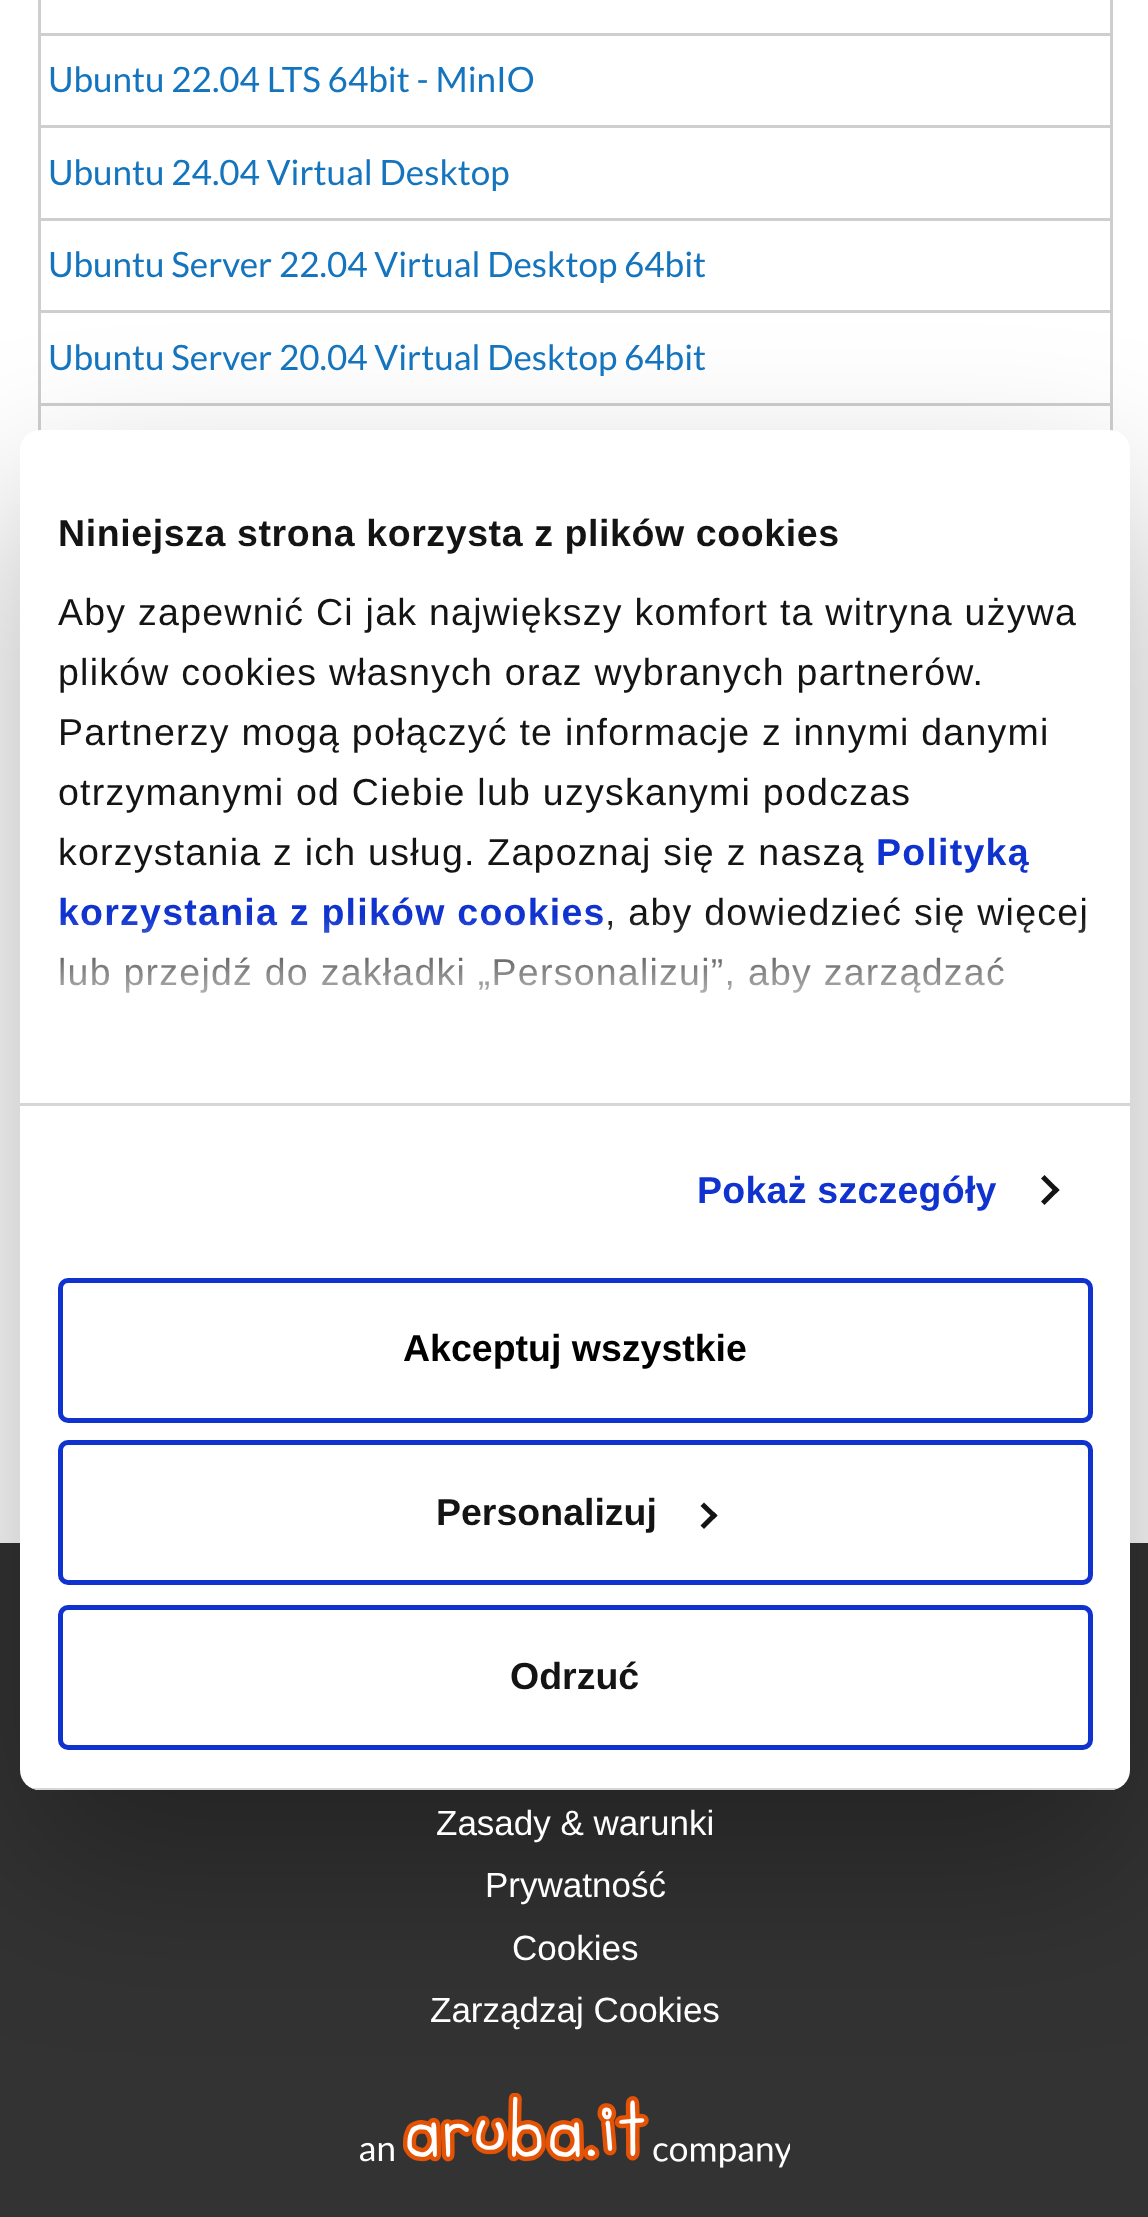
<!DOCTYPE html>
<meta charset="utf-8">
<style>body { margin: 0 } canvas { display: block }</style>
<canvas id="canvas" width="1148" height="2217"></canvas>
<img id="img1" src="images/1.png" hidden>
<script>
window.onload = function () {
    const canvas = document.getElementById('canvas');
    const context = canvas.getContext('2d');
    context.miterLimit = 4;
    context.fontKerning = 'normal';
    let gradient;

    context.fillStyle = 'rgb(255, 255, 255)';
    context.fillRect(0, 0, 1148, 2217);
    context.fillStyle = 'rgb(206, 206, 206)';
    context.fillRect(1110, 0, 3, 431);
    context.fillRect(38, 403, 3, 28);
    context.fillRect(38, 403, 1075, 3);
    context.fillRect(38, 310, 3, 95);
    context.fillRect(38, 310, 1075, 3);
    context.fillRect(38, 218, 3, 95);
    context.fillRect(38, 218, 1075, 3);
    context.fillRect(38, 125, 3, 95);
    context.fillRect(38, 125, 1075, 3);
    context.fillRect(38, 33, 3, 95);
    context.fillRect(38, 33, 1075, 3);
    context.fillRect(38, 0, 3, 35);
    context.fillStyle = 'rgb(51, 51, 51)';
    context.fillRect(0, 1543, 1148, 674);
    context.drawImage(document.getElementById('img1'), 360, 2093, 430, 75);
    context.fillStyle = 'rgba(0, 0, 0, 0.3)';
    context.filter = 'blur(85px)';
    context.beginPath();
    context.roundRect(20, 510, 1110, 1360, 20);
    context.fill();
    context.filter = 'none';
    context.fillStyle = 'rgb(255, 255, 255)';
    context.beginPath();
    context.roundRect(20, 430, 1110, 1360, 20);
    context.fill();
    context.fillStyle = 'rgb(214, 214, 214)';
    context.fillRect(20, 1103, 1110, 3);
    context.fillStyle = 'rgb(20, 20, 20)';
    context.beginPath();
    context.moveTo(1044.5, 1175);
    context.lineTo(1059.5, 1190);
    context.lineTo(1056, 1193.5);
    context.lineTo(1041, 1178.5);
    context.closePath();
    context.fill();
    context.beginPath();
    context.moveTo(1056, 1186.5);
    context.lineTo(1059.5, 1190);
    context.lineTo(1044.5, 1205);
    context.lineTo(1041, 1201.5);
    context.closePath();
    context.fill();
    context.save();
    context.beginPath();
    context.roundRect(20, 430, 1110, 1360, 20);
    context.clip();
    context.fillStyle = 'rgb(214, 214, 214)';
    context.fillRect(31, 1788, 1088, 2);
    context.restore();
    context.beginPath();
    context.roundRect(60.5, 1280.5, 1030, 140, 7.5);
    context.strokeStyle = 'rgb(16, 50, 207)';
    context.lineWidth = 5;
    context.stroke();
    context.beginPath();
    context.roundRect(60.5, 1442.5, 1030, 140, 7.5);
    context.stroke();
    context.beginPath();
    context.moveTo(704, 1502.5);
    context.lineTo(717.5, 1515.5);
    context.lineTo(714, 1519);
    context.lineTo(700.5, 1506);
    context.closePath();
    context.fill();
    context.beginPath();
    context.moveTo(714, 1512);
    context.lineTo(717.5, 1515.5);
    context.lineTo(704, 1529);
    context.lineTo(700.5, 1525.5);
    context.closePath();
    context.fill();
    context.beginPath();
    context.roundRect(60.5, 1607.5, 1030, 140, 7.5);
    context.stroke();
    context.font = '35px Lato';
    context.fillStyle = 'rgb(20, 116, 189)';
    context.fillText('Ubuntu 22.04 LTS 64bit - MinIO', 48, 92);
    context.fillText('Ubuntu 24.04 Virtual Desktop', 48, 185);
    context.fillText('Ubuntu Server 22.04 Virtual Desktop 64bit', 48, 277);
    context.fillText('Ubuntu Server 20.04 Virtual Desktop 64bit', 48, 370);
    context.font = '35px Liberation Sans';
    context.fillStyle = 'rgb(255, 255, 255)';
    context.fillText('Zasady & warunki', 436, 1835);
    context.fillText('Prywatność', 485, 1897);
    context.fillText('Cookies', 512, 1960);
    context.fillText('Zarządzaj Cookies', 430, 2022);
    context.letterSpacing = '0.6px';
    context.font = 'bold 37.5px Liberation Sans';
    context.fillStyle = 'rgb(20, 20, 20)';
    context.fillText('Niniejsza strona korzysta z plików cookies', 58, 546);
    context.letterSpacing = '1.25px';
    context.font = '37.5px Liberation Sans';
    context.fillText('Aby zapewnić Ci jak największy komfort ta witryna używa', 58, 625);
    context.fillText('plików cookies własnych oraz wybranych partnerów.', 58, 685);
    context.fillText('Partnerzy mogą połączyć te informacje z innymi danymi', 58, 745);
    context.fillText('otrzymanymi od Ciebie lub uzyskanymi podczas', 58, 805);
    context.fillText('korzystania z ich usług. Zapoznaj się z naszą', 58, 865);
    context.font = 'bold 37.5px Liberation Sans';
    context.fillStyle = 'rgb(16, 50, 207)';
    context.fillText('Polityką', 876, 865);
    context.fillText('korzystania z plików cookies', 58, 925);
    context.font = '37.5px Liberation Sans';
    context.fillStyle = 'rgb(20, 20, 20)';
    context.fillText(', aby dowiedzieć się więcej', 605, 925);
    context.fillText('lub przejdź do zakładki „Personalizuj”, aby zarządzać', 58, 985);
    gradient = context.createLinearGradient(559, 1103, 559, 915);
    gradient.addColorStop(0, 'rgb(255, 255, 255)');
    gradient.addColorStop(0.5, 'rgba(255, 255, 255, 0.8)');
    gradient.addColorStop(1, 'rgba(255, 255, 255, 0)');
    context.fillStyle = gradient;
    context.fillRect(60, 918, 1026, 75);
    context.letterSpacing = '0.25px';
    context.font = 'bold 37.5px Liberation Sans';
    context.fillStyle = 'rgb(16, 50, 207)';
    context.fillText('Pokaż szczegóły', 697, 1203);
    context.letterSpacing = '0px';
    context.fillStyle = 'rgb(0, 0, 0)';
    context.fillText('Akceptuj wszystkie', 403, 1361);
    context.fillStyle = 'rgb(20, 20, 20)';
    context.fillText('Personalizuj', 436, 1525);
    context.fillText('Odrzuć', 510, 1689);
};
</script>
